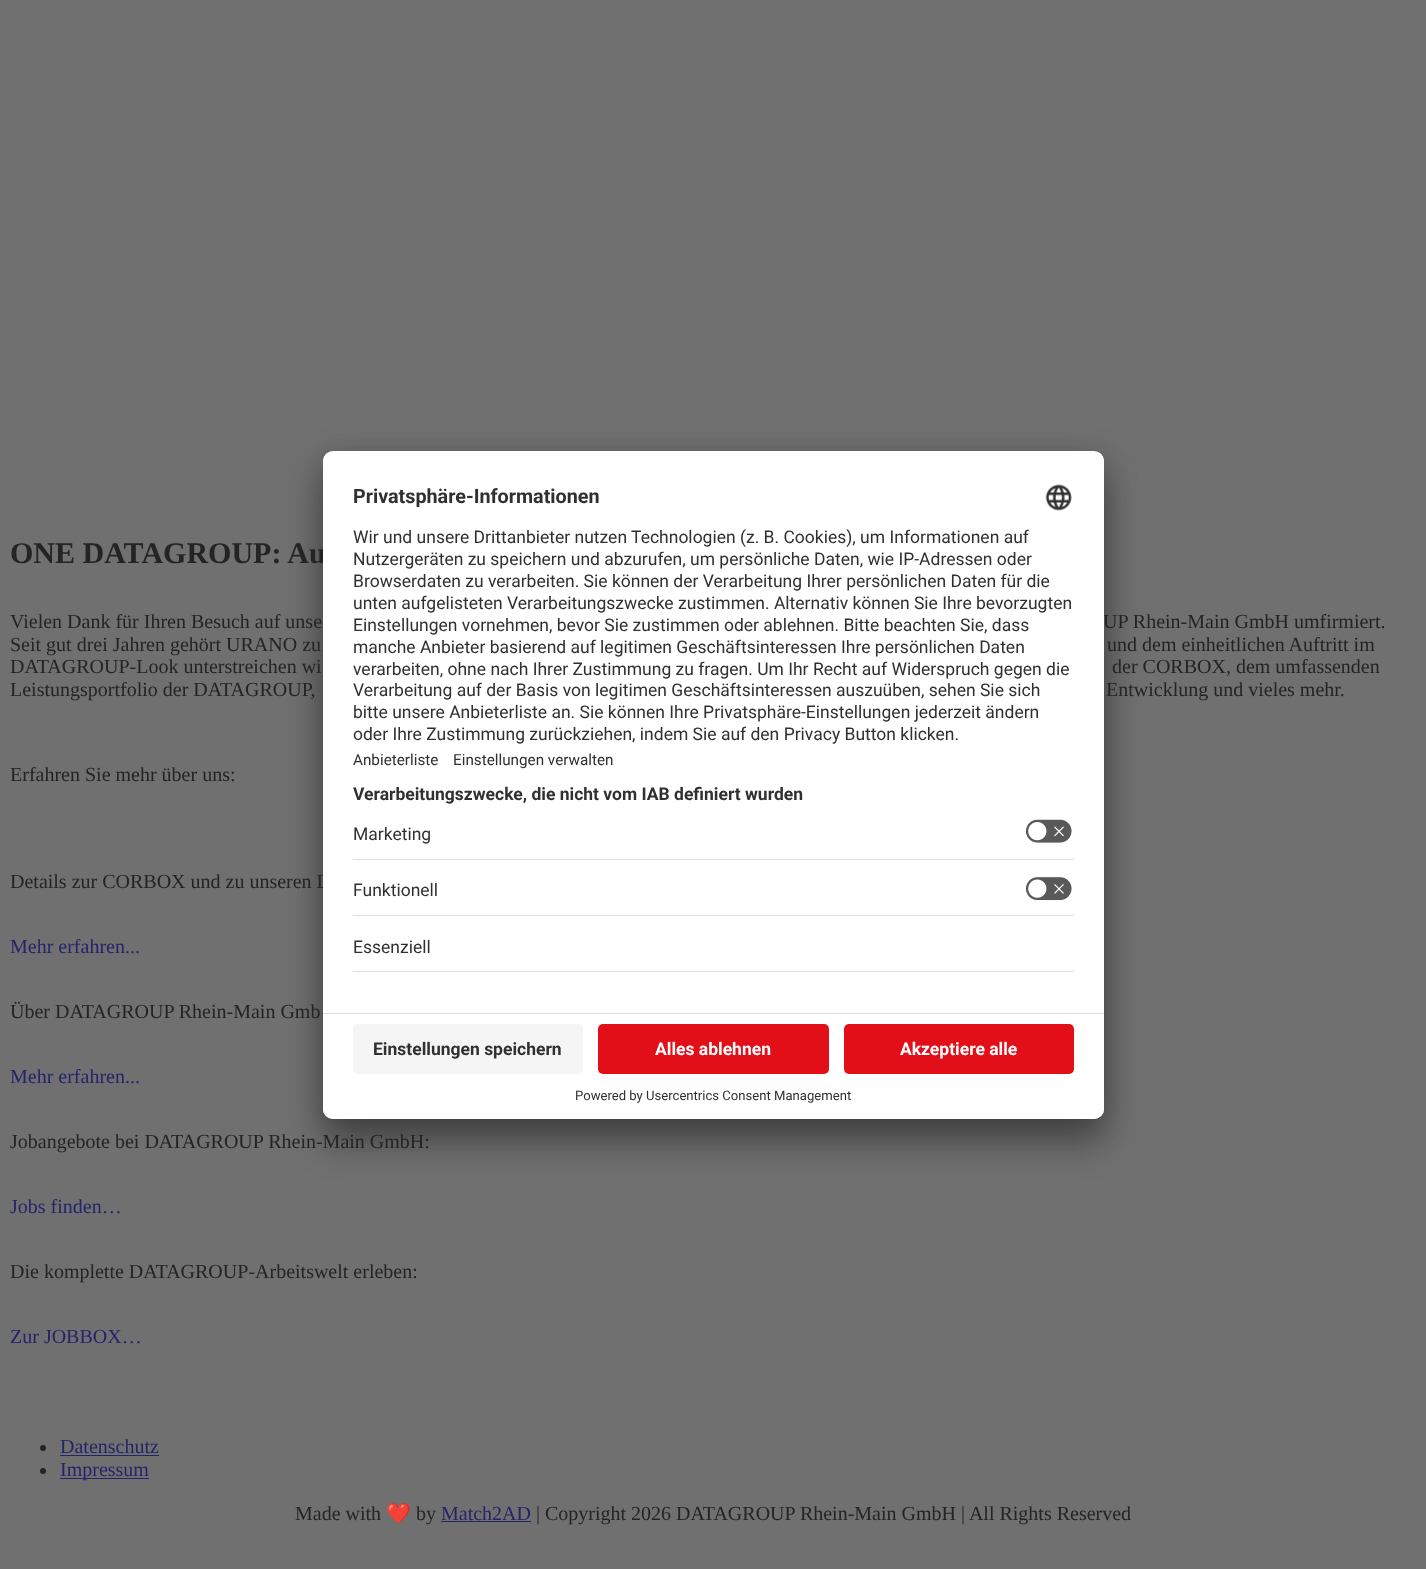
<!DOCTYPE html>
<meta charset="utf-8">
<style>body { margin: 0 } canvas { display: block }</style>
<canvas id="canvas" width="1426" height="1569"></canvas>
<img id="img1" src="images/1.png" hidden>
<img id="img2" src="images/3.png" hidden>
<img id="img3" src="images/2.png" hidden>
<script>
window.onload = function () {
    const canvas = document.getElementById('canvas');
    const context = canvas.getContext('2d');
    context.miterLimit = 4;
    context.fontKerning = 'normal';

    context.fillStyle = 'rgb(112, 112, 112)';
    context.fillRect(0, 0, 1426, 1569);
    context.fillStyle = 'rgba(0, 0, 0, 0.3)';
    context.filter = 'blur(17.5px)';
    context.beginPath();
    context.roundRect(323, 476, 781, 668, 10);
    context.fill();
    context.filter = 'none';
    context.fillStyle = 'rgba(0, 0, 0, 0.22)';
    context.filter = 'blur(16px)';
    context.beginPath();
    context.roundRect(323, 458, 781, 667, 10);
    context.fill();
    context.filter = 'none';
    context.fillStyle = 'rgb(36, 36, 36)';
    context.beginPath();
    context.arc(43, 1448, 3, 0, 2 * Math.PI);
    context.fill();
    context.fillStyle = 'rgb(36, 36, 107)';
    context.fillRect(60, 1455, 99, 1);
    context.fillStyle = 'rgb(36, 36, 36)';
    context.beginPath();
    context.arc(43, 1471, 3, 0, 2 * Math.PI);
    context.fill();
    context.fillStyle = 'rgb(36, 36, 107)';
    context.fillRect(60, 1478, 89, 1);
    context.fillRect(441, 1521, 90, 1);
    context.font = 'bold 30px Liberation Serif';
    context.fillStyle = 'rgb(36, 36, 36)';
    context.fillText('ONE DATAGROUP: Au', 10, 563);
    context.font = '20px Liberation Serif';
    context.fillText('Vielen Dank für Ihren Besuch auf unse', 10, 628);
    context.fillText('UP Rhein-Main GmbH umfirmiert.', 1103, 628);
    context.fillText('Seit gut drei Jahren gehört URANO zu', 10, 651);
    context.fillText('und dem einheitlichen Auftritt im', 1107, 651);
    context.fillText('DATAGROUP-Look unterstreichen wi', 10, 673);
    context.fillText('der CORBOX, dem umfassenden', 1112, 673);
    context.fillText('Leistungsportfolio der DATAGROUP,', 10, 696);
    context.fillText('Entwicklung und vieles mehr.', 1106, 696);
    context.fillText('Erfahren Sie mehr über uns:', 10, 781);
    context.fillText('Details zur CORBOX und zu unseren D', 10, 888);
    context.fillStyle = 'rgb(255, 255, 255)';
    context.beginPath();
    context.roundRect(323, 451, 781, 668, 10);
    context.fill();
    context.save();
    context.beginPath();
    context.roundRect(323, 451, 781, 668, 10);
    context.clip();
    context.beginPath();
    context.roundRect(323, 451, 781, 562, [10, 10, 0, 0]);
    context.clip();
    context.fillRect(323, 453, 781, 560);
    context.fillRect(323, 453, 781, 316);
    context.restore();
    context.drawImage(document.getElementById('img1'), 1045, 484, 27, 27);
    context.font = '17.5px Roboto';
    context.fillStyle = 'rgb(48, 48, 48)';
    context.fillText('Essenziell', 353, 953);
    context.fillStyle = 'rgb(221, 221, 221)';
    context.fillRect(353, 971, 721, 1);
    context.drawImage(document.getElementById('img2'), 1025, 876, 48, 25);
    context.fillStyle = 'rgb(48, 48, 48)';
    context.fillText('Funktionell', 353, 896);
    context.fillStyle = 'rgb(221, 221, 221)';
    context.fillRect(353, 915, 721, 1);
    context.drawImage(document.getElementById('img3'), 1025, 819, 48, 25);
    context.fillStyle = 'rgb(48, 48, 48)';
    context.fillText('Marketing', 353, 840);
    context.fillStyle = 'rgb(221, 221, 221)';
    context.fillRect(353, 859, 721, 1);
    context.font = 'bold 17.5px Roboto';
    context.fillStyle = 'rgb(48, 48, 48)';
    context.fillText('Verarbeitungszwecke, die nicht vom IAB definiert wurden', 353, 800);
    context.font = 'bold 19.75px Roboto';
    context.fillText('Privatsphäre-Informationen', 353, 503);
    context.font = '17.5px Roboto';
    context.fillText('oder Ihre Zustimmung zurückziehen, indem Sie auf den Privacy Button klicken.', 353, 740);
    context.fillText('bitte unsere Anbieterliste an. Sie können Ihre Privatsphäre-Einstellungen jederzeit ändern', 353, 718);
    context.fillText('Verarbeitung auf der Basis von legitimen Geschäftsinteressen auszuüben, sehen Sie sich', 353, 696);
    context.fillText('verarbeiten, ohne nach Ihrer Zustimmung zu fragen. Um Ihr Recht auf Widerspruch gegen die', 353, 675);
    context.fillText('manche Anbieter basierend auf legitimen Geschäftsinteressen Ihre persönlichen Daten', 353, 653);
    context.fillText('Einstellungen vornehmen, bevor Sie zustimmen oder ablehnen. Bitte beachten Sie, dass', 353, 631);
    context.fillText('unten aufgelisteten Verarbeitungszwecke zustimmen. Alternativ können Sie Ihre bevorzugten', 353, 609);
    context.fillText('Browserdaten zu verarbeiten. Sie können der Verarbeitung Ihrer persönlichen Daten für die', 353, 587);
    context.fillText('Nutzergeräten zu speichern und abzurufen, um persönliche Daten, wie IP-Adressen oder', 353, 565);
    context.fillText('Wir und unsere Drittanbieter nutzen Technologien (z. B. Cookies), um Informationen auf', 353, 543);
    context.font = '15.25px Roboto';
    context.fillText('Einstellungen verwalten', 453, 765);
    context.fillText('Anbieterliste', 353, 765);
    context.fillStyle = 'rgb(255, 255, 255)';
    context.beginPath();
    context.roundRect(323, 1013, 781, 106, [0, 0, 10, 10]);
    context.fill();
    context.font = '13.1px Roboto';
    context.fillStyle = 'rgb(48, 48, 48)';
    context.fillText('Powered by Usercentrics Consent Management', 575, 1100);
    context.fillStyle = 'rgb(226, 14, 24)';
    context.beginPath();
    context.roundRect(844, 1024, 230, 50, 5);
    context.fill();
    context.font = 'bold 17.5px Roboto';
    context.fillStyle = 'rgb(255, 255, 255)';
    context.fillText('Akzeptiere alle', 900, 1055);
    context.fillStyle = 'rgb(226, 14, 24)';
    context.beginPath();
    context.roundRect(598, 1024, 231, 50, 5);
    context.fill();
    context.fillStyle = 'rgb(255, 255, 255)';
    context.fillText('Alles ablehnen', 655, 1055);
    context.fillStyle = 'rgb(245, 245, 245)';
    context.beginPath();
    context.roundRect(353, 1024, 230, 50, 5);
    context.fill();
    context.fillStyle = 'rgb(48, 48, 48)';
    context.fillText('Einstellungen speichern', 373, 1055);
    context.fillStyle = 'rgb(221, 221, 221)';
    context.fillRect(323, 1013, 781, 1);
    context.font = '20px Liberation Serif';
    context.fillStyle = 'rgb(36, 36, 107)';
    context.fillText('Mehr erfahren...', 10, 953);
    context.fillStyle = 'rgb(36, 36, 36)';
    context.fillText('Über DATAGROUP Rhein-Main Gmb', 10, 1018);
    context.fillStyle = 'rgb(36, 36, 107)';
    context.fillText('Mehr erfahren...', 10, 1083);
    context.fillStyle = 'rgb(36, 36, 36)';
    context.fillText('Jobangebote bei DATAGROUP Rhein-Main GmbH:', 10, 1148);
    context.fillStyle = 'rgb(36, 36, 107)';
    context.fillText('Jobs finden…', 10, 1213);
    context.fillStyle = 'rgb(36, 36, 36)';
    context.fillText('Die komplette DATAGROUP-Arbeitswelt erleben:', 10, 1278);
    context.fillStyle = 'rgb(36, 36, 107)';
    context.fillText('Zur JOBBOX…', 10, 1343);
    context.fillText('Datenschutz', 60, 1453);
    context.fillText('Impressum', 60, 1476);
    context.fillStyle = 'rgb(36, 36, 36)';
    context.fillText('Made with', 295, 1520);
    context.font = '20px Noto Color Emoji';
    context.fillText('❤️', 386, 1520);
    context.font = '20px Liberation Serif';
    context.fillText('by', 416, 1520);
    context.fillStyle = 'rgb(36, 36, 107)';
    context.fillText('Match2AD', 441, 1520);
    context.fillStyle = 'rgb(36, 36, 36)';
    context.fillText('| Copyright 2026 DATAGROUP Rhein-Main GmbH | All Rights Reserved', 536, 1520);
};
</script>
